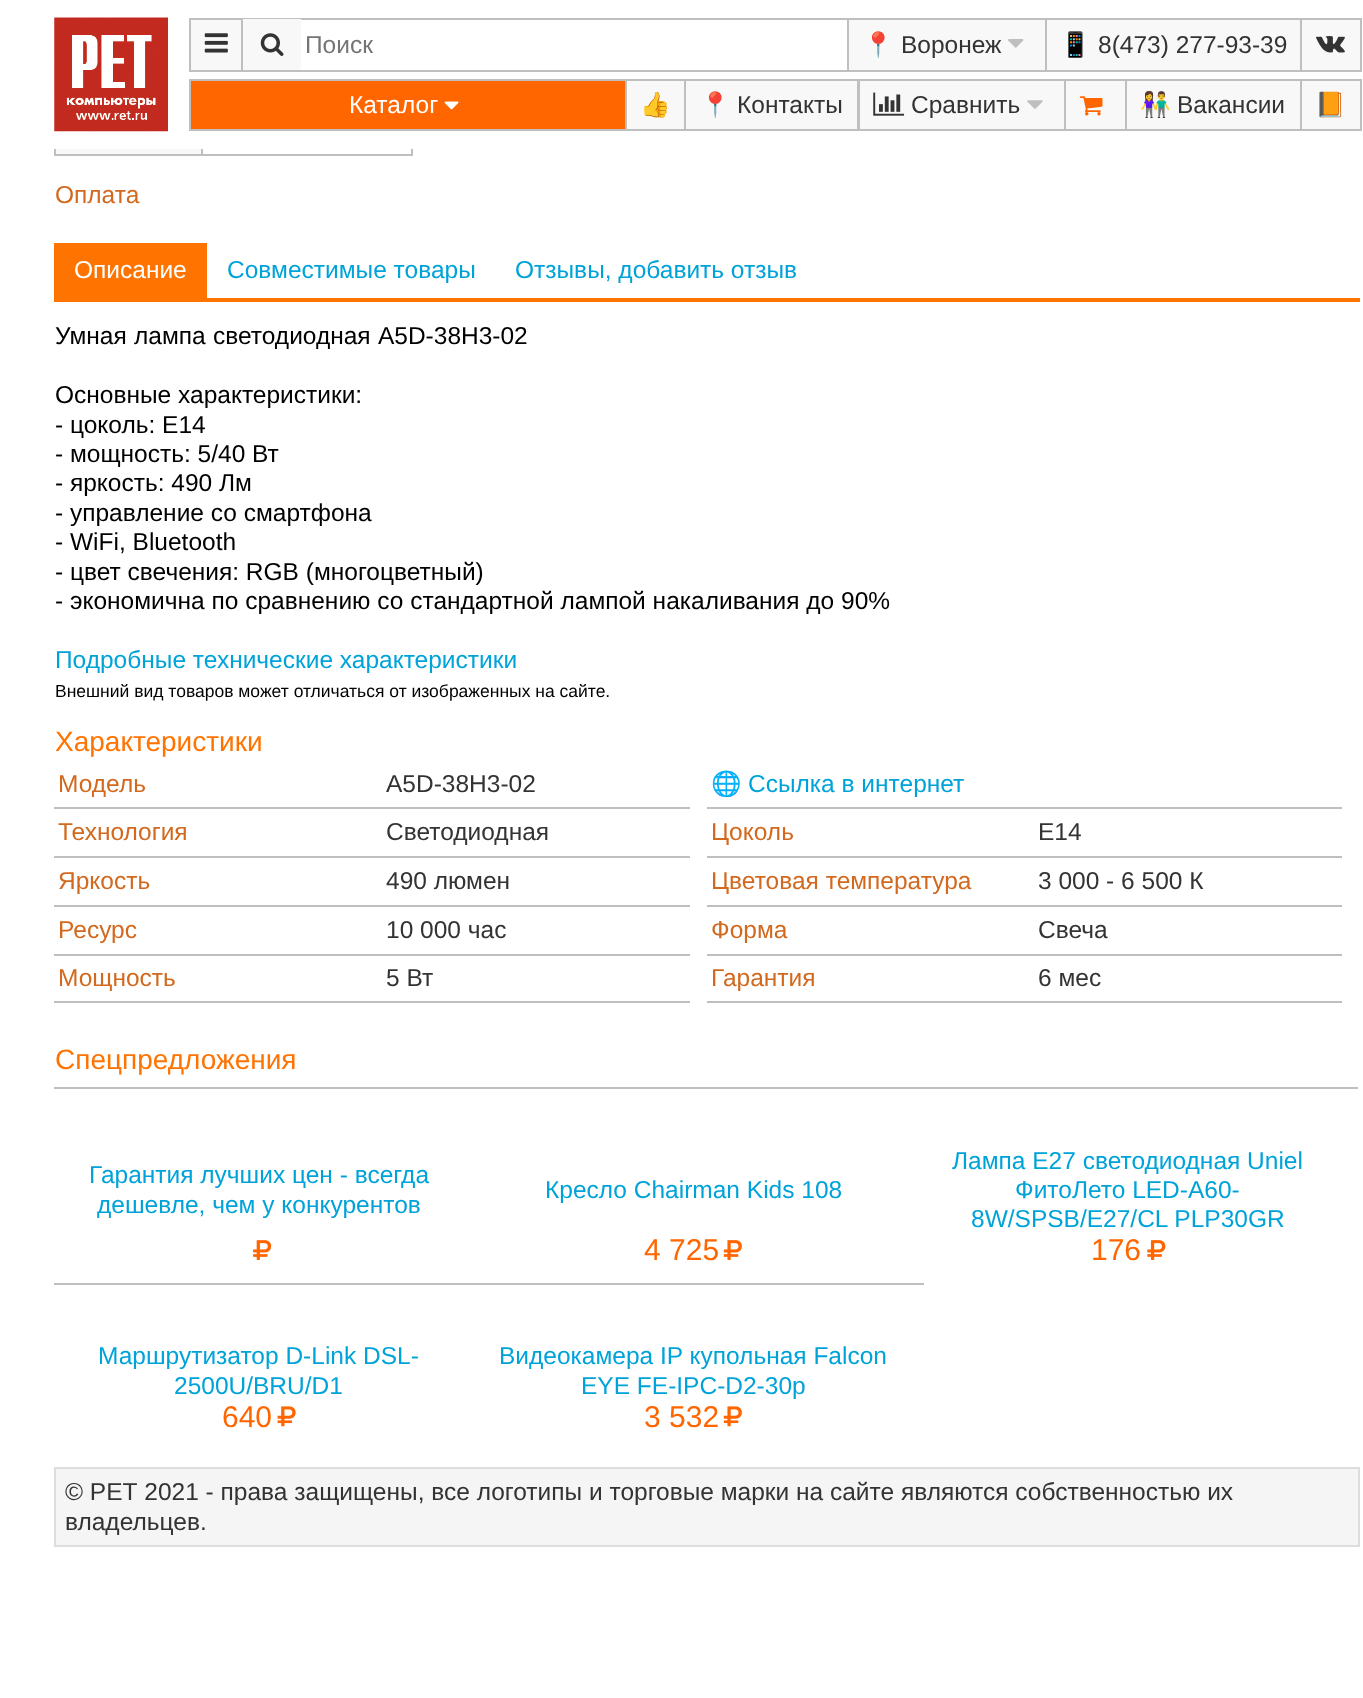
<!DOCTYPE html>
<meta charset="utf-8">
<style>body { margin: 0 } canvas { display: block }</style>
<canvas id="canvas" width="1363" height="1698"></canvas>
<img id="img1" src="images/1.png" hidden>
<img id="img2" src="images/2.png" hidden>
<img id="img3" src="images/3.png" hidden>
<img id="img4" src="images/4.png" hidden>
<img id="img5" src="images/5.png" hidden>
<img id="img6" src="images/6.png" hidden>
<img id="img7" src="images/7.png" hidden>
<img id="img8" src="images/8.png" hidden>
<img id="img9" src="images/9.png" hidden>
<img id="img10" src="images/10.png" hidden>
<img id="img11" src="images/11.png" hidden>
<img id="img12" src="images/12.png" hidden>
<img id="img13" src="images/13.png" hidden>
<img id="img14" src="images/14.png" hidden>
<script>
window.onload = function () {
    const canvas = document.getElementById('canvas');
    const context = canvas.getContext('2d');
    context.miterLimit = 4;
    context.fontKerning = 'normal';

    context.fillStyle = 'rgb(255, 255, 255)';
    context.fillRect(0, 0, 1363, 1698);
    context.fillStyle = 'rgb(248, 248, 248)';
    context.fillRect(56, 149, 145, 5);
    context.strokeStyle = 'rgb(191, 191, 191)';
    context.lineWidth = 2;
    context.strokeRect(55, 104, 147, 51);
    context.strokeRect(202, 104, 210, 51);
    context.fillStyle = 'rgb(255, 255, 255)';
    context.fillRect(54, 103, 359, 46);
    context.drawImage(document.getElementById('img1'), 54, 17, 114, 115);
    context.fillStyle = 'rgb(248, 248, 248)';
    context.beginPath();
    context.rect(190, 19, 52, 52);
    context.fill();
    context.stroke();
    context.drawImage(document.getElementById('img2'), 204, 33, 24, 20);
    context.strokeRect(243, 19, 605, 52);
    context.fillRect(243, 19, 58, 51);
    context.drawImage(document.getElementById('img3'), 260, 33, 24, 23);
    context.beginPath();
    context.rect(848, 19, 198, 52);
    context.fill();
    context.stroke();
    context.drawImage(document.getElementById('img4'), 1008, 39, 16, 9);
    context.beginPath();
    context.rect(1046, 19, 255, 52);
    context.fill();
    context.stroke();
    context.beginPath();
    context.rect(1301, 19, 60, 52);
    context.fill();
    context.stroke();
    context.drawImage(document.getElementById('img5'), 1316, 36, 29, 17);
    context.fillStyle = 'rgb(255, 102, 0)';
    context.beginPath();
    context.rect(190, 80, 436, 50);
    context.fill();
    context.stroke();
    context.drawImage(document.getElementById('img6'), 444, 101, 15, 9);
    context.fillStyle = 'rgb(248, 248, 248)';
    context.beginPath();
    context.rect(626, 80, 59, 50);
    context.fill();
    context.stroke();
    context.beginPath();
    context.rect(685, 80, 173, 50);
    context.fill();
    context.stroke();
    context.beginPath();
    context.rect(859, 80, 206, 50);
    context.fill();
    context.stroke();
    context.drawImage(document.getElementById('img7'), 873, 92, 32, 24);
    context.drawImage(document.getElementById('img8'), 1027, 100, 16, 9);
    context.beginPath();
    context.rect(1065, 80, 61, 50);
    context.fill();
    context.stroke();
    context.drawImage(document.getElementById('img9'), 1079, 96, 24, 20);
    context.beginPath();
    context.rect(1126, 80, 175, 50);
    context.fill();
    context.stroke();
    context.beginPath();
    context.rect(1301, 80, 60, 50);
    context.fill();
    context.stroke();
    context.fillStyle = 'rgb(255, 115, 0)';
    context.fillRect(54, 298, 1306, 4);
    context.fillRect(54, 243, 153, 55);
    context.fillStyle = 'rgb(191, 191, 191)';
    context.fillRect(54, 807, 636, 2);
    context.fillRect(707, 807, 635, 2);
    context.fillRect(54, 856, 636, 2);
    context.fillRect(707, 856, 635, 2);
    context.fillRect(54, 905, 636, 2);
    context.fillRect(707, 905, 635, 2);
    context.fillRect(54, 954, 636, 2);
    context.fillRect(707, 954, 635, 2);
    context.fillRect(54, 1001, 636, 2);
    context.fillRect(707, 1001, 635, 2);
    context.fillRect(54, 1087, 1304, 2);
    context.drawImage(document.getElementById('img10'), 253, 1240, 19, 20);
    context.drawImage(document.getElementById('img11'), 723, 1240, 19, 20);
    context.drawImage(document.getElementById('img12'), 1147, 1240, 19, 20);
    context.fillRect(54, 1283, 870, 2);
    context.drawImage(document.getElementById('img13'), 277, 1406, 19, 21);
    context.drawImage(document.getElementById('img14'), 723, 1406, 19, 21);
    context.fillStyle = 'rgb(245, 245, 245)';
    context.beginPath();
    context.rect(55, 1468, 1304, 78);
    context.fill();
    context.strokeStyle = 'rgb(221, 221, 221)';
    context.stroke();
    context.font = '24.5px Liberation Sans';
    context.fillStyle = 'rgb(117, 117, 117)';
    context.fillText('Поиск', 305, 53);
    context.font = '24.5px Noto Color Emoji';
    context.fillStyle = 'rgb(51, 51, 51)';
    context.fillText('📍', 863, 53);
    context.font = '24.5px Liberation Sans';
    context.fillText('Воронеж', 901, 53);
    context.font = '24.5px Noto Color Emoji';
    context.fillText('📱', 1060, 53);
    context.font = '24.5px Liberation Sans';
    context.fillText('8(473) 277-93-39', 1098, 53);
    context.fillStyle = 'rgb(255, 255, 255)';
    context.fillText('Каталог', 349, 113);
    context.font = '24.5px Noto Color Emoji';
    context.fillStyle = 'rgb(51, 51, 51)';
    context.fillText('👍', 640, 113);
    context.fillText('📍', 700, 113);
    context.font = '24.5px Liberation Sans';
    context.fillText('Контакты', 737, 113);
    context.fillText('Сравнить', 911, 113);
    context.font = '24.5px Noto Color Emoji';
    context.fillText('👫', 1140, 113);
    context.font = '24.5px Liberation Sans';
    context.fillText('Вакансии', 1177, 113);
    context.font = '24.5px Noto Color Emoji';
    context.fillText('📙', 1315, 113);
    context.font = '24.5px Liberation Sans';
    context.fillStyle = 'rgb(210, 105, 30)';
    context.fillText('Оплата', 55, 203);
    context.fillStyle = 'rgb(255, 255, 255)';
    context.fillText('Описание', 74, 278);
    context.fillStyle = 'rgb(0, 163, 217)';
    context.fillText('Совместимые товары', 227, 278);
    context.fillText('Отзывы, добавить отзыв', 515, 278);
    context.wordSpacing = '0.5px';
    context.fillStyle = 'rgb(0, 0, 0)';
    context.fillText('Умная лампа светодиодная A5D-38H3-02', 55, 344);
    context.wordSpacing = '0px';
    context.fillText('Основные характеристики:', 55, 403);
    context.fillText('- цоколь: Е14', 55, 433);
    context.fillText('- мощность: 5/40 Вт', 55, 462);
    context.fillText('- яркость: 490 Лм', 55, 491);
    context.fillText('- управление со смартфона', 55, 521);
    context.fillText('- WiFi, Bluetooth', 55, 550);
    context.fillText('- цвет свечения: RGB (многоцветный)', 55, 580);
    context.fillText('- экономична по сравнению со стандартной лампой накаливания до 90%', 55, 609);
    context.fillStyle = 'rgb(0, 163, 217)';
    context.fillText('Подробные технические характеристики', 55, 668);
    context.font = '17.5px Liberation Sans';
    context.fillStyle = 'rgb(0, 0, 0)';
    context.fillText('Внешний вид товаров может отличаться от изображенных на сайте.', 55, 697);
    context.font = '28px Liberation Sans';
    context.fillStyle = 'rgb(255, 115, 0)';
    context.fillText('Характеристики', 55, 751);
    context.font = '24.5px Liberation Sans';
    context.fillStyle = 'rgb(210, 105, 30)';
    context.fillText('Модель', 58, 792);
    context.fillStyle = 'rgb(51, 51, 51)';
    context.fillText('A5D-38H3-02', 386, 792);
    context.font = '24.5px Noto Color Emoji';
    context.fillStyle = 'rgb(0, 163, 217)';
    context.fillText('🌐', 711, 792);
    context.font = '24.5px Liberation Sans';
    context.fillText('Ссылка в интернет', 748, 792);
    context.fillStyle = 'rgb(210, 105, 30)';
    context.fillText('Технология', 58, 840);
    context.fillStyle = 'rgb(51, 51, 51)';
    context.fillText('Светодиодная', 386, 840);
    context.fillStyle = 'rgb(210, 105, 30)';
    context.fillText('Цоколь', 711, 840);
    context.fillStyle = 'rgb(51, 51, 51)';
    context.fillText('E14', 1038, 840);
    context.fillStyle = 'rgb(210, 105, 30)';
    context.fillText('Яркость', 58, 889);
    context.fillStyle = 'rgb(51, 51, 51)';
    context.fillText('490 люмен', 386, 889);
    context.fillStyle = 'rgb(210, 105, 30)';
    context.fillText('Цветовая температура', 711, 889);
    context.fillStyle = 'rgb(51, 51, 51)';
    context.fillText('3 000 - 6 500 К', 1038, 889);
    context.fillStyle = 'rgb(210, 105, 30)';
    context.fillText('Ресурс', 58, 938);
    context.fillStyle = 'rgb(51, 51, 51)';
    context.fillText('10 000 час', 386, 938);
    context.fillStyle = 'rgb(210, 105, 30)';
    context.fillText('Форма', 711, 938);
    context.fillStyle = 'rgb(51, 51, 51)';
    context.fillText('Свеча', 1038, 938);
    context.fillStyle = 'rgb(210, 105, 30)';
    context.fillText('Мощность', 58, 986);
    context.fillStyle = 'rgb(51, 51, 51)';
    context.fillText('5 Вт', 386, 986);
    context.fillStyle = 'rgb(210, 105, 30)';
    context.fillText('Гарантия', 711, 986);
    context.fillStyle = 'rgb(51, 51, 51)';
    context.fillText('6 мес', 1038, 986);
    context.font = '28px Liberation Sans';
    context.fillStyle = 'rgb(255, 115, 0)';
    context.fillText('Спецпредложения', 55, 1069);
    context.font = '24.5px Liberation Sans';
    context.fillStyle = 'rgb(0, 163, 217)';
    context.fillText('Гарантия лучших цен - всегда', 89, 1183);
    context.fillText('дешевле, чем у конкурентов', 97, 1213);
    context.fillText('Кресло Chairman Kids 108', 545, 1198);
    context.font = '30px Liberation Sans';
    context.fillStyle = 'rgb(255, 102, 0)';
    context.fillText('4 725', 644, 1260);
    context.font = '24.5px Liberation Sans';
    context.fillStyle = 'rgb(0, 163, 217)';
    context.fillText('Лампа E27 светодиодная Uniel', 952, 1169);
    context.fillText('ФитоЛето LED-A60-', 1015, 1198);
    context.fillText('8W/SPSB/E27/CL PLP30GR', 971, 1227);
    context.font = '30px Liberation Sans';
    context.fillStyle = 'rgb(255, 102, 0)';
    context.fillText('176', 1091, 1260);
    context.font = '24.5px Liberation Sans';
    context.fillStyle = 'rgb(0, 163, 217)';
    context.fillText('Маршрутизатор D-Link DSL-', 98, 1364);
    context.fillText('2500U/BRU/D1', 174, 1394);
    context.font = '30px Liberation Sans';
    context.fillStyle = 'rgb(255, 102, 0)';
    context.fillText('640', 222, 1427);
    context.font = '24.5px Liberation Sans';
    context.fillStyle = 'rgb(0, 163, 217)';
    context.fillText('Видеокамера IP купольная Falcon', 499, 1364);
    context.fillText('EYE FE-IPC-D2-30p', 581, 1394);
    context.font = '30px Liberation Sans';
    context.fillStyle = 'rgb(255, 102, 0)';
    context.fillText('3 532', 644, 1427);
    context.font = '24.5px Liberation Sans';
    context.fillStyle = 'rgb(51, 51, 51)';
    context.fillText('© РЕТ 2021 - права защищены, все логотипы и торговые марки на сайте являются собственностью их', 65, 1500);
    context.fillText('владельцев.', 65, 1530);
};
</script>
